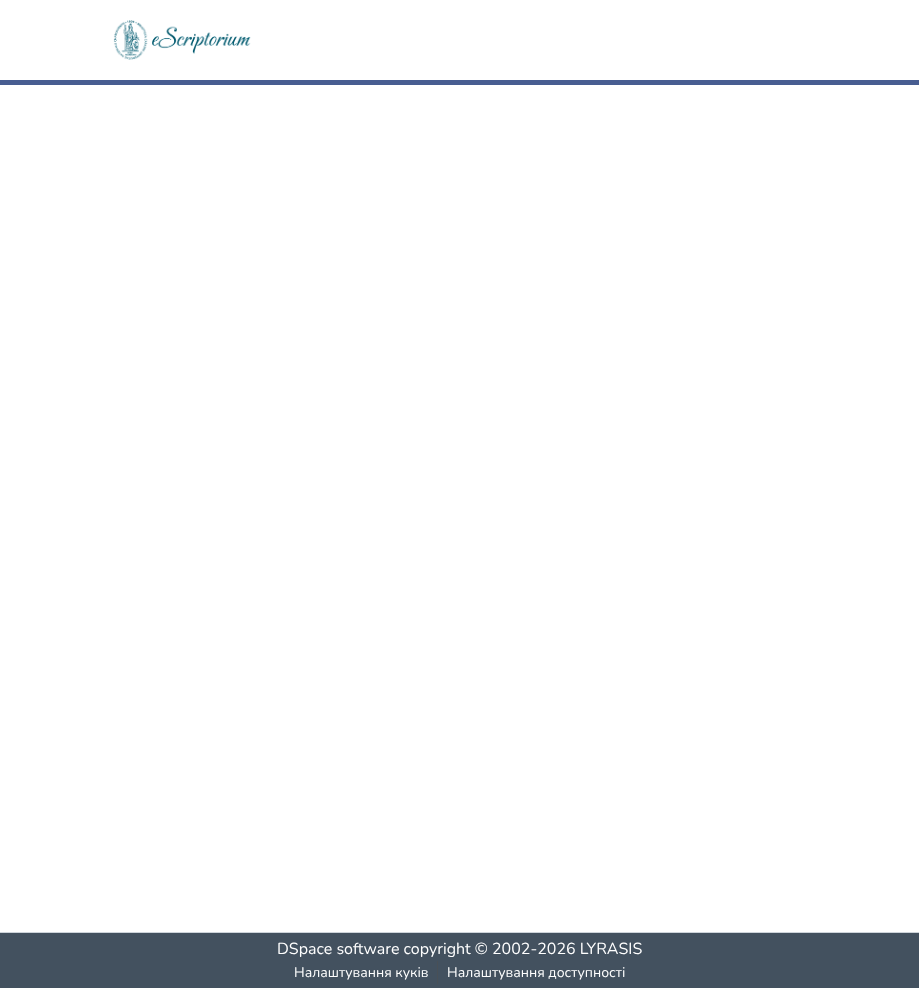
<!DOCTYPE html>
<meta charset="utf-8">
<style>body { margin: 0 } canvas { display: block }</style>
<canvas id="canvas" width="919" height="988"></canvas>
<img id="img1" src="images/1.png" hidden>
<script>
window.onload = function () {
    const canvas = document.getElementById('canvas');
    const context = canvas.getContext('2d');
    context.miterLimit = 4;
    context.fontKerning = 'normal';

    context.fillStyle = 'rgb(255, 255, 255)';
    context.fillRect(0, 0, 919, 988);
    context.fillStyle = 'rgb(72, 93, 145)';
    context.fillRect(0, 80, 919, 5);
    context.drawImage(document.getElementById('img1'), 113, 20, 138, 40);
    context.fillStyle = 'rgb(67, 81, 95)';
    context.fillRect(0, 933, 919, 55);
    context.fillStyle = 'rgb(206, 212, 218)';
    context.fillRect(0, 932, 919, 1);
    context.fillStyle = 'rgb(73, 80, 87)';
    context.fillRect(437, 961, 1, 23);
    context.font = '16px Nunito';
    context.fillStyle = 'rgb(255, 255, 255)';
    context.fillText('DSpace software copyright © 2002-2026 LYRASIS', 277, 954);
    context.font = '14px Nunito';
    context.fillText('Налаштування куків', 294, 977);
    context.fillText('Налаштування доступності', 447, 977);
};
</script>
